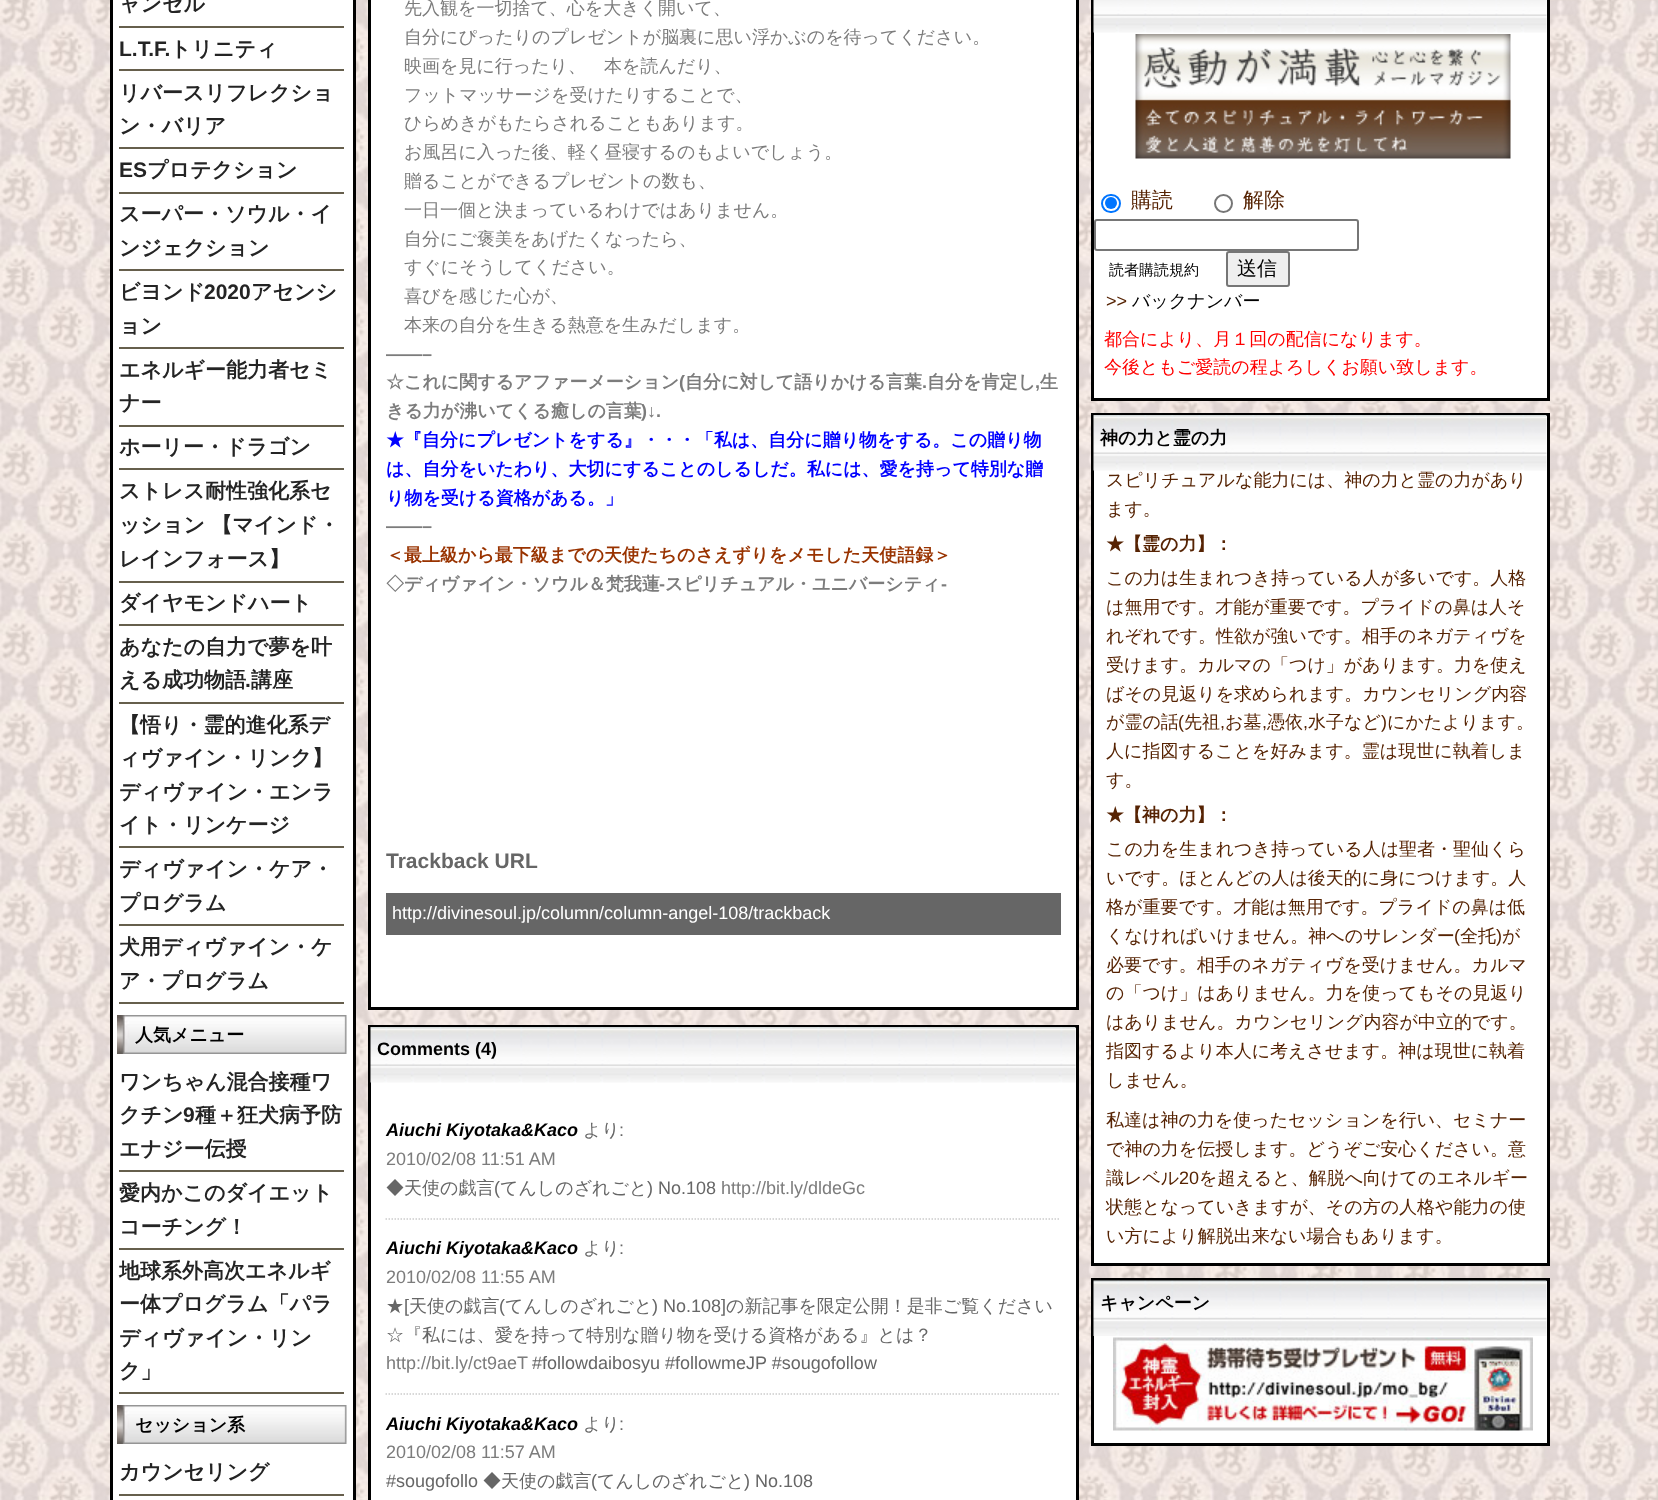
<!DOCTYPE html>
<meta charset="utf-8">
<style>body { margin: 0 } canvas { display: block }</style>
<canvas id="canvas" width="1658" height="1500"></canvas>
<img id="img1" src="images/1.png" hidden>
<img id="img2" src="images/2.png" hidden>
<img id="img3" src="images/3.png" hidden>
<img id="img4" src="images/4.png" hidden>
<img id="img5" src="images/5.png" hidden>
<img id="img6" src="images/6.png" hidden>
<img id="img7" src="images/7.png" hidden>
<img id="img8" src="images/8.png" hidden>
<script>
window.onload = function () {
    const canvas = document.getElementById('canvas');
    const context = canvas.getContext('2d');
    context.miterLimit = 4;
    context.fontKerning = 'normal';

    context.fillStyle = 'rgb(255, 255, 255)';
    context.fillRect(0, 0, 1658, 1500);
    context.drawImage(document.getElementById('img1'), 0, 0, 1658, 1500);
    context.beginPath();
    context.rect(111.5, -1.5, 243, 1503);
    context.fill();
    context.strokeStyle = 'rgb(0, 0, 0)';
    context.lineWidth = 3;
    context.stroke();
    context.fillStyle = 'rgb(102, 95, 76)';
    context.fillRect(119, 26, 225, 2);
    context.fillRect(119, 69, 225, 2);
    context.fillRect(119, 147, 225, 2);
    context.fillRect(119, 192, 225, 2);
    context.fillRect(119, 269, 225, 2);
    context.fillRect(119, 347, 225, 2);
    context.fillRect(119, 425, 225, 2);
    context.fillRect(119, 468, 225, 2);
    context.fillRect(119, 581, 225, 2);
    context.fillRect(119, 624, 225, 2);
    context.fillRect(119, 702, 225, 2);
    context.fillRect(119, 846, 225, 2);
    context.fillRect(119, 924, 225, 2);
    context.fillRect(119, 1002, 225, 2);
    context.drawImage(document.getElementById('img2'), 117, 1015, 230, 39);
    context.fillRect(119, 1170, 225, 2);
    context.fillRect(119, 1248, 225, 2);
    context.fillRect(119, 1392, 225, 2);
    context.drawImage(document.getElementById('img2'), 117, 1405, 230, 39);
    context.fillRect(119, 1494, 225, 2);
    context.fillStyle = 'rgb(255, 255, 255)';
    context.beginPath();
    context.rect(369.5, -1.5, 708, 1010);
    context.fill();
    context.stroke();
    context.fillStyle = 'rgb(102, 102, 102)';
    context.fillRect(386, 893, 675, 42);
    context.fillStyle = 'rgb(255, 255, 255)';
    context.beginPath();
    context.rect(369.5, 1026.5, 708, 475);
    context.fill();
    context.stroke();
    context.drawImage(document.getElementById('img3'), 370, 1027, 706, 56);
    context.beginPath();
    context.moveTo(385.5, 1219);
    context.lineTo(1060.5, 1219);
    context.strokeStyle = 'rgb(204, 204, 204)';
    context.lineWidth = 1.5;
    context.setLineDash([1.5, 1.5]);
    context.stroke();
    context.beginPath();
    context.moveTo(385.5, 1394);
    context.lineTo(1060.5, 1394);
    context.stroke();
    context.beginPath();
    context.rect(1092.5, -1.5, 456, 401);
    context.fill();
    context.strokeStyle = 'rgb(0, 0, 0)';
    context.lineWidth = 3;
    context.setLineDash([]);
    context.stroke();
    context.drawImage(document.getElementById('img4'), 1093, 0, 454, 33);
    context.drawImage(document.getElementById('img5'), 1135, 34, 376, 125);
    context.beginPath();
    context.roundRect(1102, 195, 18, 17, 8.5);
    context.strokeStyle = 'rgb(0, 117, 255)';
    context.lineWidth = 2;
    context.stroke();
    context.fillStyle = 'rgb(0, 117, 255)';
    context.beginPath();
    context.arc(1111, 203, 6, 0, 2 * Math.PI);
    context.fill();
    context.beginPath();
    context.arc(1223.5, 203.5, 8.5, 0, 2 * Math.PI);
    context.strokeStyle = 'rgb(118, 118, 118)';
    context.stroke();
    context.beginPath();
    context.roundRect(1095, 220, 263, 30, 2);
    context.stroke();
    context.fillStyle = 'rgb(239, 239, 239)';
    context.beginPath();
    context.roundRect(1227, 252, 62, 34, 2);
    context.fill();
    context.stroke();
    context.fillStyle = 'rgb(255, 255, 255)';
    context.beginPath();
    context.rect(1092.5, 414.5, 456, 850);
    context.fill();
    context.strokeStyle = 'rgb(0, 0, 0)';
    context.lineWidth = 3;
    context.stroke();
    context.drawImage(document.getElementById('img6'), 1093, 415, 454, 56);
    context.beginPath();
    context.rect(1092.5, 1279.5, 456, 165);
    context.fill();
    context.stroke();
    context.drawImage(document.getElementById('img7'), 1093, 1280, 454, 56);
    context.drawImage(document.getElementById('img8'), 1113, 1337, 420, 94);
    context.font = 'bold 21px WenQuanYi Zen Hei';
    context.fillStyle = 'rgb(36, 36, 36)';
    context.fillText('ャンセル', 119, 11);
    context.font = 'bold 21px Liberation Sans';
    context.fillText('L.T.F.', 119, 56);
    context.font = 'bold 21px WenQuanYi Zen Hei';
    context.fillText('トリニティ', 170, 56);
    context.fillText('リバースリフレクショ', 119, 100);
    context.fillText('ン・バリア', 119, 133);
    context.font = 'bold 21px Liberation Sans';
    context.fillText('ES', 119, 177);
    context.font = 'bold 21px WenQuanYi Zen Hei';
    context.fillText('プロテクション', 147, 177);
    context.fillText('スーパー・ソウル・イ', 119, 221);
    context.fillText('ンジェクション', 119, 255);
    context.fillText('ビヨンド', 119, 299);
    context.font = 'bold 21px Liberation Sans';
    context.fillText('2020', 204, 299);
    context.font = 'bold 21px WenQuanYi Zen Hei';
    context.fillText('アセンシ', 251, 299);
    context.fillText('ョン', 119, 333);
    context.fillText('エネルギー能力者セミ', 119, 377);
    context.fillText('ナー', 119, 410);
    context.fillText('ホーリー・ドラゴン', 119, 454);
    context.fillText('ストレス耐性強化系セ', 119, 498);
    context.fillText('ッション 【マインド・', 119, 532);
    context.fillText('レインフォース】', 119, 566);
    context.fillText('ダイヤモンドハート', 119, 610);
    context.fillText('あなたの自力で夢を叶', 119, 654);
    context.fillText('える成功物語', 119, 687);
    context.font = 'bold 21px Liberation Sans';
    context.fillText('.', 245, 687);
    context.font = 'bold 21px WenQuanYi Zen Hei';
    context.fillText('講座', 251, 687);
    context.fillText('【悟り・霊的進化系デ', 119, 732);
    context.fillText('ィヴァイン・リンク】', 119, 765);
    context.fillText('ディヴァイン・エンラ', 119, 799);
    context.fillText('イト・リンケージ', 119, 832);
    context.fillText('ディヴァイン・ケア・', 119, 876);
    context.fillText('プログラム', 119, 910);
    context.fillText('犬用ディヴァイン・ケ', 119, 954);
    context.fillText('ア・プログラム', 119, 988);
    context.font = 'bold 18px WenQuanYi Zen Hei';
    context.fillStyle = 'rgb(0, 0, 0)';
    context.fillText('人気メニュー', 135, 1041);
    context.font = 'bold 21px WenQuanYi Zen Hei';
    context.fillStyle = 'rgb(36, 36, 36)';
    context.fillText('ワンちゃん混合接種ワ', 119, 1089);
    context.fillText('クチン', 119, 1122);
    context.font = 'bold 21px Liberation Sans';
    context.fillText('9', 183, 1122);
    context.font = 'bold 21px WenQuanYi Zen Hei';
    context.fillText('種＋狂犬病予防', 195, 1122);
    context.fillText('エナジー伝授', 119, 1156);
    context.fillText('愛内かこのダイエット', 119, 1200);
    context.fillText('コーチング！', 119, 1234);
    context.fillText('地球系外高次エネルギ', 119, 1278);
    context.fillText('ー体プログラム「パラ', 119, 1311);
    context.fillText('ディヴァイン・リン', 119, 1345);
    context.fillText('ク」', 119, 1378);
    context.font = 'bold 18px WenQuanYi Zen Hei';
    context.fillStyle = 'rgb(0, 0, 0)';
    context.fillText('セッション系', 135, 1431);
    context.font = 'bold 21px WenQuanYi Zen Hei';
    context.fillStyle = 'rgb(36, 36, 36)';
    context.fillText('カウンセリング', 119, 1479);
    context.font = '500 18px WenQuanYi Zen Hei';
    context.fillStyle = 'rgb(124, 124, 124)';
    context.fillText('先入観を一切捨て、心を大きく開いて、', 404, 14);
    context.fillText('自分にぴったりのプレゼントが脳裏に思い浮かぶのを待ってください。', 404, 43);
    context.fillText('映画を見に行ったり、　本を読んだり、', 404, 72);
    context.fillText('フットマッサージを受けたりすることで、', 404, 101);
    context.fillText('ひらめきがもたらされることもあります。', 404, 129);
    context.fillText('お風呂に入った後、軽く昼寝するのもよいでしょう。', 404, 158);
    context.fillText('贈ることができるプレゼントの数も、', 404, 187);
    context.fillText('一日一個と決まっているわけではありません。', 404, 216);
    context.fillText('自分にご褒美をあげたくなったら、', 404, 245);
    context.fillText('すぐにそうしてください。', 404, 273);
    context.fillText('喜びを感じた心が、', 404, 302);
    context.fillText('本来の自分を生きる熱意を生みだします。', 404, 331);
    context.font = 'bold 18px Liberation Sans';
    context.fillText('——–', 386, 360);
    context.font = 'bold 18px WenQuanYi Zen Hei';
    context.fillText('☆これに関するアファーメーション', 386, 388);
    context.font = 'bold 18px Liberation Sans';
    context.fillText('(', 679, 388);
    context.font = 'bold 18px WenQuanYi Zen Hei';
    context.fillText('自分に対して語りかける言葉', 685, 388);
    context.font = 'bold 18px Liberation Sans';
    context.fillText('.', 922, 388);
    context.font = 'bold 18px WenQuanYi Zen Hei';
    context.fillText('自分を肯定し', 927, 388);
    context.font = 'bold 18px Liberation Sans';
    context.fillText(',', 1035, 388);
    context.font = 'bold 18px WenQuanYi Zen Hei';
    context.fillText('生', 1040, 388);
    context.fillText('きる力が沸いてくる癒しの言葉', 386, 417);
    context.font = 'bold 18px Liberation Sans';
    context.fillText(')↓.', 641, 417);
    context.font = 'bold 18px WenQuanYi Zen Hei';
    context.fillStyle = 'rgb(0, 0, 255)';
    context.fillText('★『自分にプレゼントをする』・・・「私は、自分に贈り物をする。この贈り物', 386, 446);
    context.fillText('は、自分をいたわり、大切にすることのしるしだ。私には、愛を持って特別な贈', 386, 475);
    context.fillText('り物を受ける資格がある。」', 386, 504);
    context.font = 'bold 18px Liberation Sans';
    context.fillStyle = 'rgb(124, 124, 124)';
    context.fillText('——–', 386, 532);
    context.font = 'bold 18px WenQuanYi Zen Hei';
    context.fillStyle = 'rgb(153, 51, 0)';
    context.fillText('＜最上級から最下級までの天使たちのさえずりをメモした天使語録＞', 386, 561);
    context.fillStyle = 'rgb(124, 124, 124)';
    context.fillText('◇ディヴァイン・ソウル＆梵我蓮', 386, 590);
    context.font = 'bold 18px Liberation Sans';
    context.fillText('‐', 659, 590);
    context.font = 'bold 18px WenQuanYi Zen Hei';
    context.fillText('スピリチュアル・ユニバーシティ', 665, 590);
    context.font = 'bold 18px Liberation Sans';
    context.fillText('‐', 941, 590);
    context.font = 'bold 21px Liberation Sans';
    context.fillStyle = 'rgb(102, 102, 102)';
    context.fillText('Trackback URL', 386, 868);
    context.font = '18px Liberation Sans';
    context.fillStyle = 'rgb(255, 255, 255)';
    context.fillText('http://divinesoul.jp/column/column-angel-108/trackback', 392, 919);
    context.font = 'bold 18px Liberation Sans';
    context.fillStyle = 'rgb(0, 0, 0)';
    context.fillText('Comments (4)', 377, 1055);
    context.font = 'italic bold 18px Liberation Sans';
    context.fillText('Aiuchi Kiyotaka&Kaco', 386, 1136);
    context.font = '500 18px WenQuanYi Zen Hei';
    context.fillStyle = 'rgb(102, 102, 102)';
    context.fillText('より', 583, 1136);
    context.font = '18px Liberation Sans';
    context.fillText(':', 619, 1136);
    context.fillStyle = 'rgb(124, 124, 124)';
    context.fillText('2010/02/08 11:51 AM', 386, 1165);
    context.font = '500 18px WenQuanYi Zen Hei';
    context.fillStyle = 'rgb(102, 102, 102)';
    context.fillText('◆天使の戯言', 386, 1194);
    context.font = '18px Liberation Sans';
    context.fillText('(', 494, 1194);
    context.font = '500 18px WenQuanYi Zen Hei';
    context.fillText('てんしのざれごと', 500, 1194);
    context.font = '18px Liberation Sans';
    context.fillText(') No.108', 647, 1194);
    context.fillStyle = 'rgb(124, 124, 124)';
    context.fillText('http://bit.ly/dldeGc', 721, 1194);
    context.font = 'italic bold 18px Liberation Sans';
    context.fillStyle = 'rgb(0, 0, 0)';
    context.fillText('Aiuchi Kiyotaka&Kaco', 386, 1254);
    context.font = '500 18px WenQuanYi Zen Hei';
    context.fillStyle = 'rgb(102, 102, 102)';
    context.fillText('より', 583, 1254);
    context.font = '18px Liberation Sans';
    context.fillText(':', 619, 1254);
    context.fillStyle = 'rgb(124, 124, 124)';
    context.fillText('2010/02/08 11:55 AM', 386, 1283);
    context.font = '500 18px WenQuanYi Zen Hei';
    context.fillStyle = 'rgb(102, 102, 102)';
    context.fillText('★', 386, 1312);
    context.font = '18px Liberation Sans';
    context.fillText('[', 404, 1312);
    context.font = '500 18px WenQuanYi Zen Hei';
    context.fillText('天使の戯言', 409, 1312);
    context.font = '18px Liberation Sans';
    context.fillText('(', 499, 1312);
    context.font = '500 18px WenQuanYi Zen Hei';
    context.fillText('てんしのざれごと', 505, 1312);
    context.font = '18px Liberation Sans';
    context.fillText(') No.108]', 652, 1312);
    context.font = '500 18px WenQuanYi Zen Hei';
    context.fillText('の新記事を限定公開！是非ご覧ください', 726, 1312);
    context.fillText('☆『私には、愛を持って特別な贈り物を受ける資格がある』とは？', 386, 1341);
    context.font = '18px Liberation Sans';
    context.fillStyle = 'rgb(124, 124, 124)';
    context.fillText('http://bit.ly/ct9aeT', 386, 1369);
    context.fillStyle = 'rgb(102, 102, 102)';
    context.fillText('#followdaibosyu #followmeJP #sougofollow', 532, 1369);
    context.font = 'italic bold 18px Liberation Sans';
    context.fillStyle = 'rgb(0, 0, 0)';
    context.fillText('Aiuchi Kiyotaka&Kaco', 386, 1430);
    context.font = '500 18px WenQuanYi Zen Hei';
    context.fillStyle = 'rgb(102, 102, 102)';
    context.fillText('より', 583, 1430);
    context.font = '18px Liberation Sans';
    context.fillText(':', 619, 1430);
    context.fillStyle = 'rgb(124, 124, 124)';
    context.fillText('2010/02/08 11:57 AM', 386, 1458);
    context.fillStyle = 'rgb(102, 102, 102)';
    context.fillText('#sougofollo', 386, 1487);
    context.font = '500 18px WenQuanYi Zen Hei';
    context.fillText('◆天使の戯言', 483, 1487);
    context.font = '18px Liberation Sans';
    context.fillText('(', 591, 1487);
    context.font = '500 18px WenQuanYi Zen Hei';
    context.fillText('てんしのざれごと', 597, 1487);
    context.font = '18px Liberation Sans';
    context.fillText(') No.108', 744, 1487);
    context.font = '500 21px WenQuanYi Zen Hei';
    context.fillStyle = 'rgb(86, 35, 3)';
    context.fillText('購読', 1131, 207);
    context.fillText('解除', 1243, 207);
    context.font = '500 15px WenQuanYi Zen Hei';
    context.fillStyle = 'rgb(0, 0, 0)';
    context.fillText('読者購読規約', 1109, 275);
    context.font = '500 20px WenQuanYi Zen Hei';
    context.fillText('送信', 1237, 275);
    context.font = '18px Liberation Sans';
    context.fillStyle = 'rgb(86, 35, 3)';
    context.fillText('>>', 1106, 307);
    context.font = '500 18px WenQuanYi Zen Hei';
    context.fillStyle = 'rgb(0, 0, 0)';
    context.fillText('バックナンバー', 1132, 307);
    context.fillStyle = 'rgb(255, 0, 0)';
    context.fillText('都合により、月１回の配信になります。', 1104, 345);
    context.fillText('今後ともご愛読の程よろしくお願い致します。', 1104, 373);
    context.font = 'bold 18px WenQuanYi Zen Hei';
    context.fillStyle = 'rgb(0, 0, 0)';
    context.fillText('神の力と霊の力', 1100, 444);
    context.font = '500 18px WenQuanYi Zen Hei';
    context.fillStyle = 'rgb(86, 35, 3)';
    context.fillText('スピリチュアルな能力には、神の力と霊の力があり', 1106, 486);
    context.fillText('ます。', 1106, 515);
    context.font = 'bold 18px WenQuanYi Zen Hei';
    context.fillText('★【霊の力】：', 1106, 550);
    context.font = '500 18px WenQuanYi Zen Hei';
    context.fillText('この力は生まれつき持っている人が多いです。人格', 1106, 584);
    context.fillText('は無用です。才能が重要です。プライドの鼻は人そ', 1106, 613);
    context.fillText('れぞれです。性欲が強いです。相手のネガティヴを', 1106, 642);
    context.fillText('受けます。カルマの「つけ」があります。力を使え', 1106, 671);
    context.fillText('ばその見返りを求められます。カウンセリング内容', 1106, 700);
    context.fillText('が霊の話', 1106, 728);
    context.font = '18px Liberation Sans';
    context.fillText('(', 1178, 728);
    context.font = '500 18px WenQuanYi Zen Hei';
    context.fillText('先祖', 1184, 728);
    context.font = '18px Liberation Sans';
    context.fillText(',', 1220, 728);
    context.font = '500 18px WenQuanYi Zen Hei';
    context.fillText('お墓', 1225, 728);
    context.font = '18px Liberation Sans';
    context.fillText(',', 1262, 728);
    context.font = '500 18px WenQuanYi Zen Hei';
    context.fillText('憑依', 1267, 728);
    context.font = '18px Liberation Sans';
    context.fillText(',', 1303, 728);
    context.font = '500 18px WenQuanYi Zen Hei';
    context.fillText('水子など', 1308, 728);
    context.font = '18px Liberation Sans';
    context.fillText(')', 1381, 728);
    context.font = '500 18px WenQuanYi Zen Hei';
    context.fillText('にかたよります。', 1387, 728);
    context.fillText('人に指図することを好みます。霊は現世に執着しま', 1106, 757);
    context.fillText('す。', 1106, 786);
    context.font = 'bold 18px WenQuanYi Zen Hei';
    context.fillText('★【神の力】：', 1106, 821);
    context.font = '500 18px WenQuanYi Zen Hei';
    context.fillText('この力を生まれつき持っている人は聖者・聖仙くら', 1106, 855);
    context.fillText('いです。ほとんどの人は後天的に身につけます。人', 1106, 884);
    context.fillText('格が重要です。才能は無用です。プライドの鼻は低', 1106, 913);
    context.fillText('くなければいけません。神へのサレンダー', 1106, 942);
    context.font = '18px Liberation Sans';
    context.fillText('(', 1454, 942);
    context.font = '500 18px WenQuanYi Zen Hei';
    context.fillText('全托', 1460, 942);
    context.font = '18px Liberation Sans';
    context.fillText(')', 1496, 942);
    context.font = '500 18px WenQuanYi Zen Hei';
    context.fillText('が', 1502, 942);
    context.fillText('必要です。相手のネガティヴを受けません。カルマ', 1106, 971);
    context.fillText('の「つけ」はありません。力を使ってもその見返り', 1106, 999);
    context.fillText('はありません。カウンセリング内容が中立的です。', 1106, 1028);
    context.fillText('指図するより本人に考えさせます。神は現世に執着', 1106, 1057);
    context.fillText('しません。', 1106, 1086);
    context.fillText('私達は神の力を使ったセッションを行い、セミナー', 1106, 1126);
    context.fillText('で神の力を伝授します。どうぞご安心ください。意', 1106, 1155);
    context.fillText('識レベル', 1106, 1184);
    context.font = '18px Liberation Sans';
    context.fillText('20', 1179, 1184);
    context.font = '500 18px WenQuanYi Zen Hei';
    context.fillText('を超えると、解脱へ向けてのエネルギー', 1199, 1184);
    context.fillText('状態となっていきますが、その方の人格や能力の使', 1106, 1213);
    context.fillText('い方により解脱出来ない場合もあります。', 1106, 1242);
    context.font = 'bold 18px WenQuanYi Zen Hei';
    context.fillStyle = 'rgb(0, 0, 0)';
    context.fillText('キャンペーン', 1100, 1309);
};
</script>
